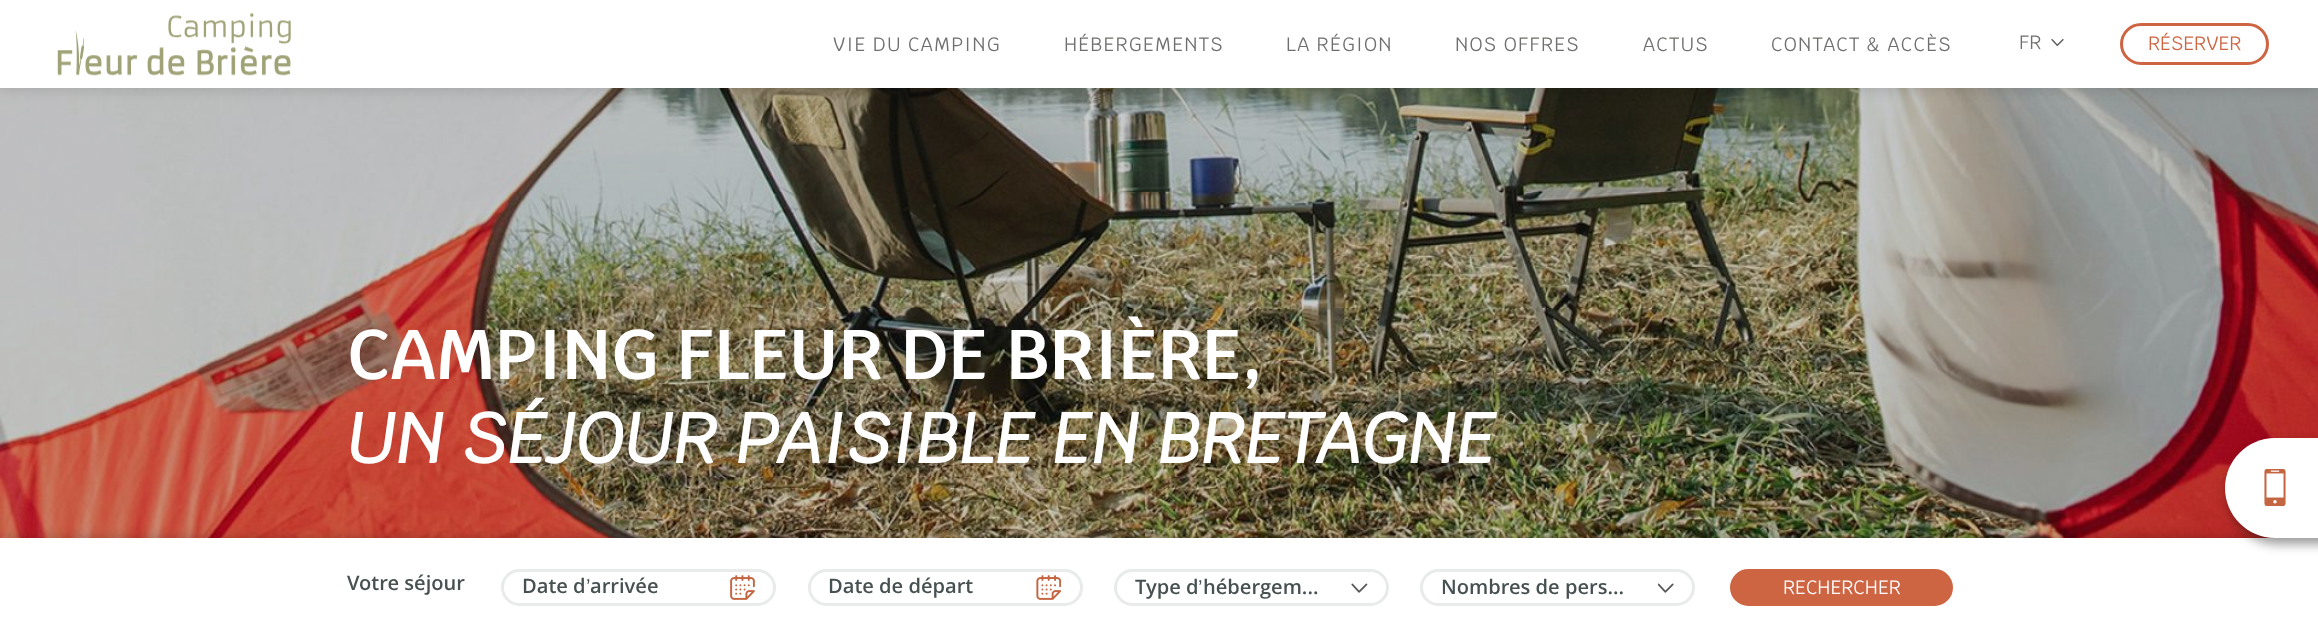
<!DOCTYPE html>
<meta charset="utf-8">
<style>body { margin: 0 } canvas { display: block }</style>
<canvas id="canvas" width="2318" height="637"></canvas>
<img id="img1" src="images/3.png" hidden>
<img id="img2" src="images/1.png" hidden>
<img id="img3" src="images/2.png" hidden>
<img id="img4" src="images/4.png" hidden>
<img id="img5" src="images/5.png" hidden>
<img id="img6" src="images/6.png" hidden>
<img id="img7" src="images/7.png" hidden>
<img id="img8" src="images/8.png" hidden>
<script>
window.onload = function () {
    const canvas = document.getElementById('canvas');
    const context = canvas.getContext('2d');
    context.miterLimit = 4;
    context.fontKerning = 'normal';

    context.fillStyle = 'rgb(255, 255, 255)';
    context.fillRect(0, 0, 2318, 637);
    context.drawImage(document.getElementById('img1'), 0, 88, 2318, 450);
    context.fillStyle = 'rgba(0, 0, 0, 0.1)';
    context.filter = 'blur(6px)';
    context.beginPath();
    context.rect(0, 4, 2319, 87);
    context.fill();
    context.filter = 'none';
    context.fillStyle = 'rgb(255, 255, 255)';
    context.fillRect(0, 0, 2318, 88);
    context.drawImage(document.getElementById('img2'), 57, 13, 234, 63);
    context.drawImage(document.getElementById('img3'), 2051, 39, 13, 7);
    context.beginPath();
    context.roundRect(2121.5, 24.5, 146, 39, 19.5);
    context.strokeStyle = 'rgb(205, 101, 67)';
    context.lineWidth = 3;
    context.stroke();
    context.fillStyle = 'rgba(0, 0, 0, 0.2)';
    context.filter = 'blur(6px)';
    context.beginPath();
    context.rect(4, 538, 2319, 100);
    context.fill();
    context.filter = 'none';
    context.fillStyle = 'rgb(255, 255, 255)';
    context.fillRect(0, 538, 2318, 99);
    context.fillStyle = 'rgba(0, 0, 0, 0.4)';
    context.filter = 'blur(5.5px)';
    context.beginPath();
    context.roundRect(2228, 444, 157, 100, 50);
    context.fill();
    context.filter = 'none';
    context.fillStyle = 'rgb(255, 255, 255)';
    context.beginPath();
    context.moveTo(2275, 438);
    context.lineTo(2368, 438);
    context.lineTo(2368, 538);
    context.lineTo(2275, 538);
    context.bezierCurveTo(2247.5, 538, 2225, 515.5, 2225, 488);
    context.bezierCurveTo(2225, 460.5, 2247.5, 438, 2275, 438);
    context.closePath();
    context.fill();
    context.drawImage(document.getElementById('img4'), 2264, 469, 22, 37);
    context.drawImage(document.getElementById('img5'), 730, 575, 25, 25);
    context.beginPath();
    context.roundRect(502.5, 570.5, 272, 34, 17);
    context.strokeStyle = 'rgb(232, 235, 234)';
    context.stroke();
    context.drawImage(document.getElementById('img6'), 1036, 575, 25, 25);
    context.beginPath();
    context.roundRect(809.5, 570.5, 272, 34, 17);
    context.stroke();
    context.drawImage(document.getElementById('img7'), 1351, 583, 17, 10);
    context.beginPath();
    context.roundRect(1115.5, 570.5, 272, 34, 17);
    context.stroke();
    context.drawImage(document.getElementById('img8'), 1658, 583, 16, 10);
    context.beginPath();
    context.roundRect(1421.5, 570.5, 272, 34, 17);
    context.stroke();
    context.fillStyle = 'rgb(205, 101, 67)';
    context.beginPath();
    context.roundRect(1731.5, 570.5, 220, 34, 17);
    context.fill();
    context.strokeStyle = 'rgb(205, 101, 67)';
    context.stroke();
    context.letterSpacing = '1.25px';
    context.font = '19.25px Krub';
    context.fillStyle = 'rgb(111, 111, 110)';
    context.fillText('VIE DU CAMPING', 833, 51);
    context.fillText('HÉBERGEMENTS', 1064, 51);
    context.fillText('LA RÉGION', 1286, 51);
    context.fillText('NOS OFFRES', 1455, 51);
    context.fillText('ACTUS', 1643, 51);
    context.fillText('CONTACT & ACCÈS', 1771, 51);
    context.letterSpacing = '0px';
    context.fillText('FR', 2019, 49);
    context.fillStyle = 'rgb(205, 101, 67)';
    context.fillText('RÉSERVER', 2148, 50);
    context.font = '600 70px Krub';
    context.fillStyle = 'rgb(255, 255, 255)';
    context.fillText('CAMPING FLEUR DE BRIÈRE,', 347, 379);
    context.font = 'italic bold 70px Krub';
    context.fillText('UN SÉJOUR PAISIBLE EN BRETAGNE', 347, 463);
    context.font = '600 20.1px Open Sans';
    context.fillStyle = 'rgb(71, 81, 81)';
    context.fillText('Votre séjour', 347, 590);
    context.fillText('Date d', 522, 593);
    context.font = '20.1px Liberation Sans';
    context.fillText('’', 586, 593);
    context.font = '600 20.1px Open Sans';
    context.fillText('arrivée', 590, 593);
    context.fillText('Date de départ', 828, 593);
    context.fillText('Type d', 1135, 594);
    context.font = '20.1px Liberation Sans';
    context.fillText('’', 1198, 594);
    context.font = '600 20.1px Open Sans';
    context.fillText('hébergem...', 1203, 594);
    context.fillText('Nombres de pers...', 1441, 594);
    context.font = '19.25px Krub';
    context.fillStyle = 'rgb(255, 255, 255)';
    context.fillText('RECHERCHER', 1783, 594);
};
</script>
